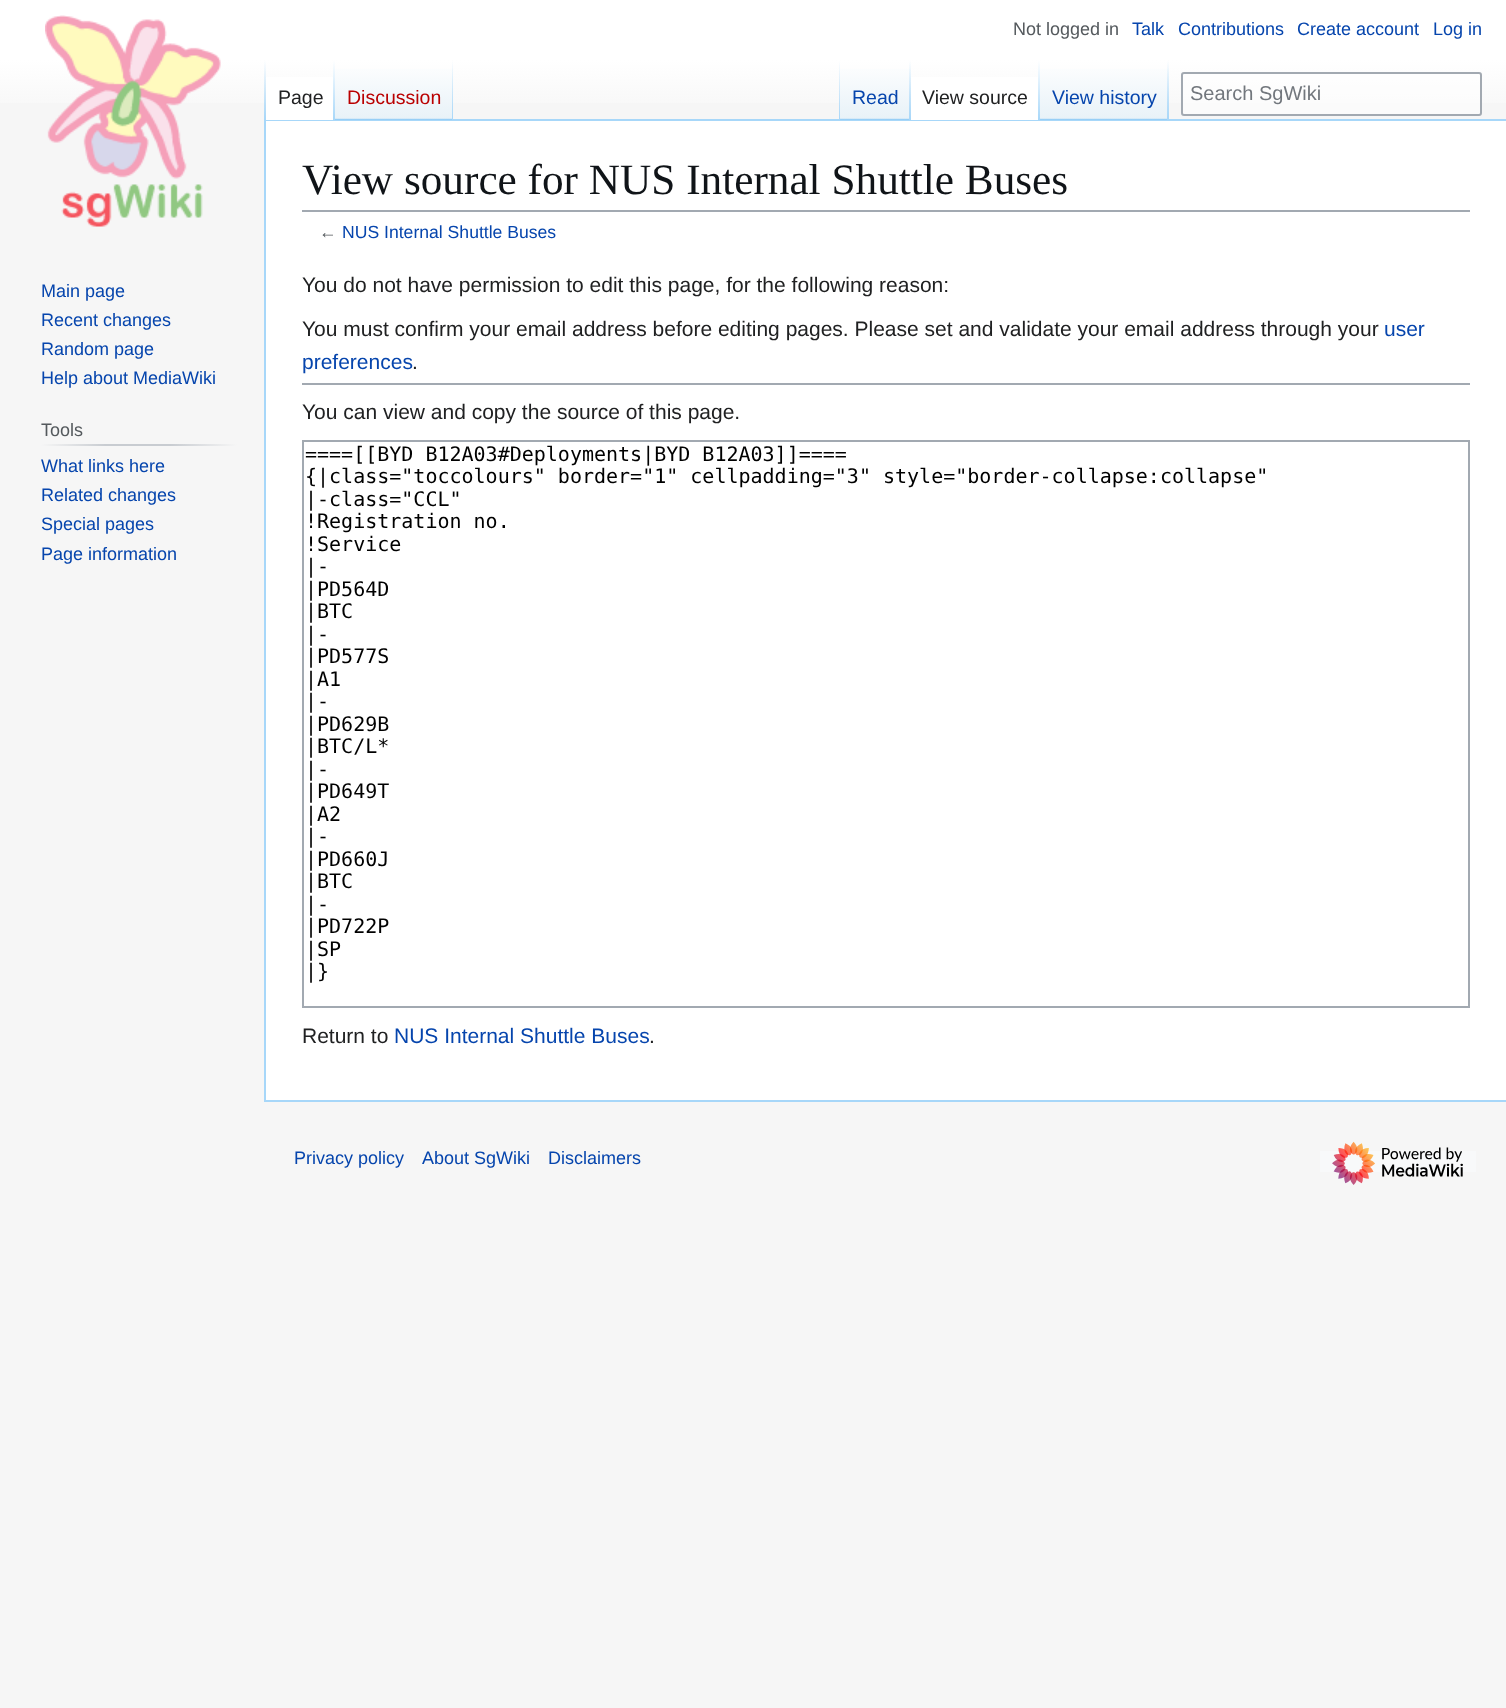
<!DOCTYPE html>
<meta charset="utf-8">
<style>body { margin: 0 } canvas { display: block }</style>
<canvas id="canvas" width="1506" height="1708"></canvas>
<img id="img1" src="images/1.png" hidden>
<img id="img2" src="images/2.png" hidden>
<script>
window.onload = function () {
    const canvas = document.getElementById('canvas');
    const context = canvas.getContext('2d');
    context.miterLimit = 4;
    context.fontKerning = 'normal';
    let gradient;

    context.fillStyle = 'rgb(246, 246, 246)';
    context.fillRect(0, 0, 1506, 1708);
    gradient = context.createLinearGradient(753, 0, 753, 120);
    gradient.addColorStop(0.5, 'rgb(255, 255, 255)');
    gradient.addColorStop(1, 'rgb(246, 246, 246)');
    context.fillStyle = gradient;
    context.fillRect(0, 0, 1506, 103);
    context.fillStyle = 'rgb(167, 215, 249)';
    context.fillRect(264, 119, 1242, 2);
    context.fillRect(264, 1100, 1242, 2);
    context.fillRect(264, 119, 2, 982);
    gradient = context.createLinearGradient(265, 60, 265, 120);
    gradient.addColorStop(0, 'rgba(167, 215, 249, 0)');
    gradient.addColorStop(1, 'rgb(167, 215, 249)');
    context.fillStyle = gradient;
    context.fillRect(264, 60, 2, 60);
    context.fillStyle = 'rgb(255, 255, 255)';
    context.fillRect(266, 77, 67, 43);
    gradient = context.createLinearGradient(334, 60, 334, 120);
    gradient.addColorStop(0, 'rgb(255, 255, 255)');
    gradient.addColorStop(1, 'rgb(167, 215, 249)');
    context.fillStyle = gradient;
    context.fillRect(333, 60, 2, 60);
    gradient = context.createLinearGradient(394, 120, 394, 60);
    gradient.addColorStop(0, 'rgb(119, 193, 246)');
    gradient.addColorStop(0.03, 'rgb(232, 242, 248)');
    gradient.addColorStop(1, 'rgb(255, 255, 255)');
    context.fillStyle = gradient;
    context.fillRect(335, 69, 118, 51);
    gradient = context.createLinearGradient(452, 60, 452, 120);
    gradient.addColorStop(0, 'rgba(167, 215, 249, 0)');
    gradient.addColorStop(1, 'rgb(167, 215, 249)');
    context.fillStyle = gradient;
    context.fillRect(452, 60, 1, 60);
    gradient = context.createLinearGradient(839, 60, 839, 120);
    gradient.addColorStop(0, 'rgba(167, 215, 249, 0)');
    gradient.addColorStop(1, 'rgb(167, 215, 249)');
    context.fillStyle = gradient;
    context.fillRect(839, 60, 1, 60);
    gradient = context.createLinearGradient(875, 120, 875, 60);
    gradient.addColorStop(0, 'rgb(119, 193, 246)');
    gradient.addColorStop(0.03, 'rgb(232, 242, 248)');
    gradient.addColorStop(1, 'rgb(255, 255, 255)');
    context.fillStyle = gradient;
    context.fillRect(840, 69, 71, 51);
    gradient = context.createLinearGradient(910, 60, 910, 120);
    gradient.addColorStop(0, 'rgba(167, 215, 249, 0)');
    gradient.addColorStop(1, 'rgb(167, 215, 249)');
    context.fillStyle = gradient;
    context.fillRect(909, 60, 2, 60);
    context.fillStyle = 'rgb(255, 255, 255)';
    context.fillRect(911, 77, 127, 43);
    gradient = context.createLinearGradient(1039, 60, 1039, 120);
    gradient.addColorStop(0, 'rgb(255, 255, 255)');
    gradient.addColorStop(1, 'rgb(167, 215, 249)');
    context.fillStyle = gradient;
    context.fillRect(1038, 60, 2, 60);
    gradient = context.createLinearGradient(1104, 120, 1104, 60);
    gradient.addColorStop(0, 'rgb(119, 193, 246)');
    gradient.addColorStop(0.03, 'rgb(232, 242, 248)');
    gradient.addColorStop(1, 'rgb(255, 255, 255)');
    context.fillStyle = gradient;
    context.fillRect(1040, 69, 129, 51);
    gradient = context.createLinearGradient(1168, 60, 1168, 120);
    gradient.addColorStop(0, 'rgba(167, 215, 249, 0)');
    gradient.addColorStop(1, 'rgb(167, 215, 249)');
    context.fillStyle = gradient;
    context.fillRect(1167, 60, 2, 60);
    context.fillStyle = 'rgba(255, 255, 255, 0.5)';
    context.beginPath();
    context.roundRect(1182, 73, 299, 42, 2);
    context.fill();
    context.strokeStyle = 'rgb(162, 169, 177)';
    context.lineWidth = 2;
    context.stroke();
    context.drawImage(document.getElementById('img1'), 45, 15, 176, 212);
    gradient = context.createLinearGradient(41, 445, 237, 445);
    gradient.addColorStop(0, 'rgb(246, 246, 246)');
    gradient.addColorStop(0.33, 'rgb(200, 204, 209)');
    gradient.addColorStop(0.66, 'rgb(200, 204, 209)');
    gradient.addColorStop(1, 'rgb(246, 246, 246)');
    context.fillStyle = gradient;
    context.fillRect(41, 444, 196, 2);
    context.fillStyle = 'rgb(255, 255, 255)';
    context.fillRect(266, 121, 1240, 979);
    context.fillStyle = 'rgb(162, 169, 177)';
    context.fillRect(302, 210, 1168, 2);
    context.fillRect(302, 383, 1168, 2);
    context.strokeRect(303, 441, 1166, 566);
    context.fillStyle = 'rgb(248, 249, 250)';
    context.fillRect(1320, 1151, 156, 21);
    context.drawImage(document.getElementById('img2'), 1332, 1141, 131, 44);
    context.font = '18px Liberation Sans';
    context.fillStyle = 'rgb(84, 89, 93)';
    context.fillText('Not logged in', 1013, 35);
    context.fillStyle = 'rgb(6, 69, 173)';
    context.fillText('Talk', 1132, 35);
    context.fillText('Contributions', 1178, 35);
    context.fillText('Create account', 1297, 35);
    context.fillText('Log in', 1433, 35);
    context.font = '19.5px Liberation Sans';
    context.fillStyle = 'rgb(32, 33, 34)';
    context.fillText('Page', 278, 104);
    context.fillStyle = 'rgb(186, 0, 0)';
    context.fillText('Discussion', 347, 104);
    context.fillStyle = 'rgb(6, 69, 173)';
    context.fillText('Read', 852, 104);
    context.fillStyle = 'rgb(32, 33, 34)';
    context.fillText('View source', 922, 104);
    context.fillStyle = 'rgb(6, 69, 173)';
    context.fillText('View history', 1052, 104);
    context.font = '20px Liberation Sans';
    context.fillStyle = 'rgb(114, 119, 125)';
    context.fillText('Search SgWiki', 1190, 100);
    context.font = '18px Liberation Sans';
    context.fillStyle = 'rgb(6, 69, 173)';
    context.fillText('Main page', 41, 297);
    context.fillText('Recent changes', 41, 326);
    context.fillText('Random page', 41, 355);
    context.fillText('Help about MediaWiki', 41, 384);
    context.fillStyle = 'rgb(84, 89, 93)';
    context.fillText('Tools', 41, 436);
    context.fillStyle = 'rgb(6, 69, 173)';
    context.fillText('What links here', 41, 472);
    context.fillText('Related changes', 41, 501);
    context.fillText('Special pages', 41, 530);
    context.fillText('Page information', 41, 560);
    context.font = '43.25px Liberation Serif';
    context.fillStyle = 'rgb(16, 20, 24)';
    context.fillText('View source for NUS Internal Shuttle Buses', 302, 194);
    context.font = '17.6px Liberation Sans';
    context.fillStyle = 'rgb(84, 89, 93)';
    context.fillText('←', 319, 238);
    context.fillStyle = 'rgb(6, 69, 173)';
    context.fillText('NUS Internal Shuttle Buses', 342, 238);
    context.font = '21px Liberation Sans';
    context.fillStyle = 'rgb(32, 33, 34)';
    context.fillText('You do not have permission to edit this page, for the following reason:', 302, 292);
    context.fillText('You must confirm your email address before editing pages. Please set and validate your email address through your', 302, 336);
    context.fillStyle = 'rgb(6, 69, 173)';
    context.fillText('user', 1384, 336);
    context.fillText('preferences', 302, 369);
    context.fillStyle = 'rgb(32, 33, 34)';
    context.fillText('.', 412, 369);
    context.fillText('You can view and copy the source of this page.', 302, 419);
    context.font = '20px DejaVu Sans Mono';
    context.fillStyle = 'rgb(0, 0, 0)';
    context.fillText('====[[BYD B12A03#Deployments|BYD B12A03]]====', 305, 461);
    context.fillText('{|class="toccolours" border="1" cellpadding="3" style="border-collapse:collapse"', 305, 483);
    context.fillText('|-class="CCL"', 305, 506);
    context.fillText('!Registration no.', 305, 528);
    context.fillText('!Service', 305, 551);
    context.fillText('|-', 305, 573);
    context.fillText('|PD564D', 305, 596);
    context.fillText('|BTC', 305, 618);
    context.fillText('|-', 305, 641);
    context.fillText('|PD577S', 305, 663);
    context.fillText('|A1', 305, 686);
    context.fillText('|-', 305, 708);
    context.fillText('|PD629B', 305, 731);
    context.fillText('|BTC/L*', 305, 753);
    context.fillText('|-', 305, 776);
    context.fillText('|PD649T', 305, 798);
    context.fillText('|A2', 305, 821);
    context.fillText('|-', 305, 843);
    context.fillText('|PD660J', 305, 866);
    context.fillText('|BTC', 305, 888);
    context.fillText('|-', 305, 911);
    context.fillText('|PD722P', 305, 933);
    context.fillText('|SP', 305, 956);
    context.fillText('|}', 305, 978);
    context.font = '21px Liberation Sans';
    context.fillStyle = 'rgb(32, 33, 34)';
    context.fillText('Return to', 302, 1043);
    context.fillStyle = 'rgb(6, 69, 173)';
    context.fillText('NUS Internal Shuttle Buses', 394, 1043);
    context.fillStyle = 'rgb(32, 33, 34)';
    context.fillText('.', 649, 1043);
    context.font = '18px Liberation Sans';
    context.fillStyle = 'rgb(6, 69, 173)';
    context.fillText('Privacy policy', 294, 1164);
    context.fillText('About SgWiki', 422, 1164);
    context.fillText('Disclaimers', 548, 1164);
};
</script>
